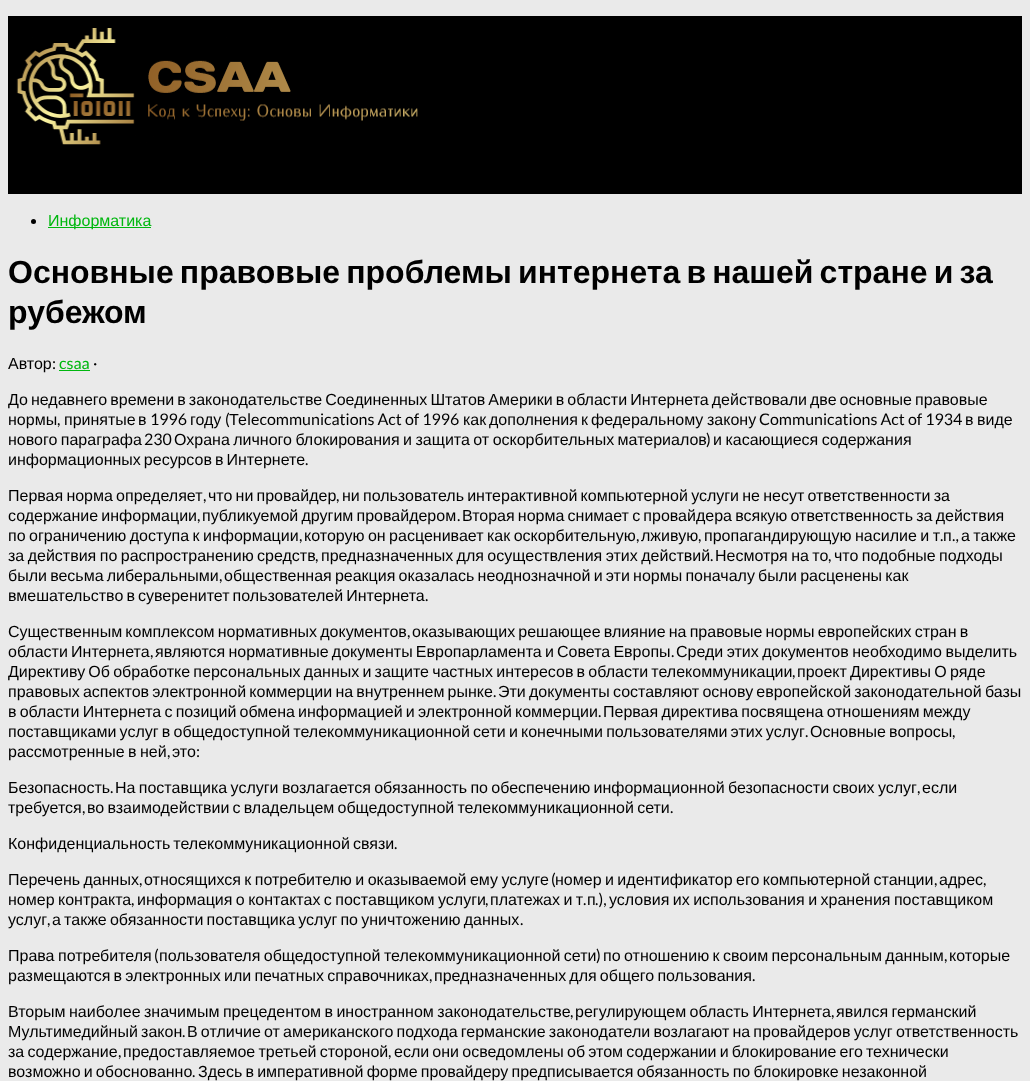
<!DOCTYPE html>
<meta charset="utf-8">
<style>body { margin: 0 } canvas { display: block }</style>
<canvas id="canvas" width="1030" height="1081"></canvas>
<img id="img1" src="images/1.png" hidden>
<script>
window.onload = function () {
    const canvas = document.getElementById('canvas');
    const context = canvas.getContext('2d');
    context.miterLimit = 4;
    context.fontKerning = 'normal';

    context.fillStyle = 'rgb(234, 234, 234)';
    context.fillRect(0, 0, 1030, 1081);
    context.fillStyle = 'rgb(0, 0, 0)';
    context.fillRect(8, 16, 1014, 178);
    context.drawImage(document.getElementById('img1'), 16, 28, 402, 117);
    context.beginPath();
    context.arc(33.5, 221.5, 2.5, 0, 2 * Math.PI);
    context.fill();
    context.fillStyle = 'rgb(0, 183, 15)';
    context.fillRect(48, 227, 103, 1);
    context.fillRect(59, 370, 31, 1);
    context.font = '16px Liberation Sans';
    context.fillText('Информатика', 48, 226);
    context.wordSpacing = '-2.75px';
    context.font = 'bold 32px Liberation Sans';
    context.fillStyle = 'rgb(0, 0, 0)';
    context.fillText('Основные правовые проблемы интернета в нашей стране и за', 8, 283);
    context.wordSpacing = '0px';
    context.fillText('рубежом', 8, 323);
    context.font = '16px Liberation Sans';
    context.fillText('Автор', 8, 369);
    context.font = '16px Lato';
    context.fillText(':', 52, 369);
    context.fillStyle = 'rgb(0, 183, 15)';
    context.fillText('csaa', 59, 369);
    context.fillStyle = 'rgb(0, 0, 0)';
    context.fillText('·', 93, 369);
    context.wordSpacing = '-1.4px';
    context.font = '16px Liberation Sans';
    context.fillText('До недавнего времени в законодательстве Соединенных Штатов Америки в области Интернета действовали две основные правовые', 8, 405);
    context.wordSpacing = '0px';
    context.fillText('нормы', 8, 425);
    context.font = '16px Lato';
    context.fillText(',', 57, 425);
    context.font = '16px Liberation Sans';
    context.fillText('принятые', 64, 425);
    context.fillText('в', 138, 425);
    context.font = '16px Lato';
    context.fillText('1996', 150, 425);
    context.font = '16px Liberation Sans';
    context.fillText('году', 190, 425);
    context.font = '16px Lato';
    context.fillText('(', 225, 425);
    context.font = '16px Liberation Sans';
    context.fillText('Те', 229, 425);
    context.font = '16px Lato';
    context.fillText('lecommunications Act of 1996', 247, 425);
    context.font = '16px Liberation Sans';
    context.fillText('как', 463, 425);
    context.fillText('дополнения', 489, 425);
    context.fillText('к', 581, 425);
    context.fillText('федеральному', 591, 425);
    context.fillText('закону', 707, 425);
    context.font = '16px Lato';
    context.fillText('Communications Act of 1934', 759, 425);
    context.font = '16px Liberation Sans';
    context.fillText('в', 965, 425);
    context.fillText('виде', 977, 425);
    context.wordSpacing = '-1px';
    context.fillText('нового параграфа', 8, 445);
    context.wordSpacing = '0px';
    context.font = '16px Lato';
    context.fillText('230', 144, 445);
    context.wordSpacing = '-1px';
    context.font = '16px Liberation Sans';
    context.fillText('Охрана личного блокирования и защита от оскорбительных материалов', 174, 445);
    context.wordSpacing = '0px';
    context.font = '16px Lato';
    context.fillText(')', 706, 445);
    context.wordSpacing = '-1px';
    context.font = '16px Liberation Sans';
    context.fillText('и касающиеся содержания', 713, 445);
    context.wordSpacing = '-1.4px';
    context.fillText('информационных ресурсов в Интернете', 8, 465);
    context.wordSpacing = '0px';
    context.font = '16px Lato';
    context.fillText('.', 305, 465);
    context.wordSpacing = '-1.25px';
    context.font = '16px Liberation Sans';
    context.fillText('Первая норма определяет', 8, 501);
    context.wordSpacing = '0px';
    context.font = '16px Lato';
    context.fillText(',', 203, 501);
    context.wordSpacing = '-1.25px';
    context.font = '16px Liberation Sans';
    context.fillText('что ни провайдер', 208, 501);
    context.wordSpacing = '0px';
    context.font = '16px Lato';
    context.fillText(',', 336, 501);
    context.wordSpacing = '-1.25px';
    context.font = '16px Liberation Sans';
    context.fillText('ни пользователь интерактивной компьютерной услуги не несут ответственности за', 342, 501);
    context.fillText('содержание информации', 8, 521);
    context.wordSpacing = '0px';
    context.font = '16px Lato';
    context.fillText(',', 197, 521);
    context.wordSpacing = '-1.25px';
    context.font = '16px Liberation Sans';
    context.fillText('публикуемой другим провайдером', 202, 521);
    context.wordSpacing = '0px';
    context.font = '16px Lato';
    context.fillText('.', 457, 521);
    context.wordSpacing = '-1.25px';
    context.font = '16px Liberation Sans';
    context.fillText('Вторая норма снимает с провайдера всякую ответственность за действия', 462, 521);
    context.wordSpacing = '-1px';
    context.fillText('по ограничению доступа к информации', 8, 541);
    context.wordSpacing = '0px';
    context.font = '16px Lato';
    context.fillText(',', 299, 541);
    context.wordSpacing = '-1px';
    context.font = '16px Liberation Sans';
    context.fillText('которую он расценивает как оскорбительную', 304, 541);
    context.wordSpacing = '0px';
    context.font = '16px Lato';
    context.fillText(',', 636, 541);
    context.font = '16px Liberation Sans';
    context.fillText('лживую', 641, 541);
    context.font = '16px Lato';
    context.fillText(',', 698, 541);
    context.wordSpacing = '-1px';
    context.font = '16px Liberation Sans';
    context.fillText('пропагандирующую насилие и т', 704, 541);
    context.wordSpacing = '0px';
    context.font = '16px Lato';
    context.fillText('.', 940, 541);
    context.font = '16px Liberation Sans';
    context.fillText('п', 943, 541);
    context.font = '16px Lato';
    context.fillText('.,', 952, 541);
    context.wordSpacing = '-1px';
    context.font = '16px Liberation Sans';
    context.fillText('а также', 961, 541);
    context.fillText('за действия по распространению средств', 8, 561);
    context.wordSpacing = '0px';
    context.font = '16px Lato';
    context.fillText(',', 315, 561);
    context.wordSpacing = '-1px';
    context.font = '16px Liberation Sans';
    context.fillText('предназначенных для осуществления этих действий', 321, 561);
    context.wordSpacing = '0px';
    context.font = '16px Lato';
    context.fillText('.', 710, 561);
    context.wordSpacing = '-1px';
    context.font = '16px Liberation Sans';
    context.fillText('Несмотря на то', 715, 561);
    context.wordSpacing = '0px';
    context.font = '16px Lato';
    context.fillText(',', 828, 561);
    context.wordSpacing = '-1px';
    context.font = '16px Liberation Sans';
    context.fillText('что подобные подходы', 834, 561);
    context.wordSpacing = '-1.25px';
    context.fillText('были весьма либеральными', 8, 581);
    context.wordSpacing = '0px';
    context.font = '16px Lato';
    context.fillText(',', 219, 581);
    context.wordSpacing = '-1.25px';
    context.font = '16px Liberation Sans';
    context.fillText('общественная реакция оказалась неоднозначной и эти нормы поначалу были расценены как', 224, 581);
    context.wordSpacing = '-1.4px';
    context.fillText('вмешательство в суверенитет пользователей Интернета', 8, 601);
    context.wordSpacing = '0px';
    context.font = '16px Lato';
    context.fillText('.', 425, 601);
    context.wordSpacing = '-1.25px';
    context.font = '16px Liberation Sans';
    context.fillText('Существенным комплексом нормативных документов', 8, 637);
    context.wordSpacing = '0px';
    context.font = '16px Lato';
    context.fillText(',', 407, 637);
    context.wordSpacing = '-1.25px';
    context.font = '16px Liberation Sans';
    context.fillText('оказывающих решающее влияние на правовые нормы европейских стран в', 412, 637);
    context.fillText('области Интернета', 8, 657);
    context.wordSpacing = '0px';
    context.font = '16px Lato';
    context.fillText(',', 150, 657);
    context.wordSpacing = '-1.25px';
    context.font = '16px Liberation Sans';
    context.fillText('являются нормативные документы Европарламента и Совета Европы', 155, 657);
    context.wordSpacing = '0px';
    context.font = '16px Lato';
    context.fillText('.', 671, 657);
    context.wordSpacing = '-1px';
    context.font = '16px Liberation Sans';
    context.fillText('Среди этих документов необходимо выделить', 676, 657);
    context.wordSpacing = '-1.25px';
    context.fillText('Директиву Об обработке персональных данных и защите частных интересов в области телекоммуникации', 8, 677);
    context.wordSpacing = '0px';
    context.font = '16px Lato';
    context.fillText(',', 792, 677);
    context.wordSpacing = '-1.25px';
    context.font = '16px Liberation Sans';
    context.fillText('проект Директивы О ряде', 797, 677);
    context.fillText('правовых аспектов электронной коммерции на внутреннем рынке', 8, 697);
    context.wordSpacing = '0px';
    context.font = '16px Lato';
    context.fillText('.', 493, 697);
    context.wordSpacing = '-1.25px';
    context.font = '16px Liberation Sans';
    context.fillText('Эти документы составляют основу европейской законодательной базы', 498, 697);
    context.fillText('в области Интернета с позиций обмена информацией и электронной коммерции', 8, 717);
    context.wordSpacing = '0px';
    context.font = '16px Lato';
    context.fillText('.', 598, 717);
    context.wordSpacing = '-1.25px';
    context.font = '16px Liberation Sans';
    context.fillText('Первая директива посвящена отношениям между', 603, 717);
    context.fillText('поставщиками услуг в общедоступной телекоммуникационной сети и конечными пользователями этих услуг', 8, 737);
    context.wordSpacing = '0px';
    context.font = '16px Lato';
    context.fillText('.', 805, 737);
    context.wordSpacing = '-1.25px';
    context.font = '16px Liberation Sans';
    context.fillText('Основные вопросы', 810, 737);
    context.wordSpacing = '0px';
    context.font = '16px Lato';
    context.fillText(',', 952, 737);
    context.wordSpacing = '-1px';
    context.font = '16px Liberation Sans';
    context.fillText('рассмотренные в ней', 8, 757);
    context.wordSpacing = '0px';
    context.font = '16px Lato';
    context.fillText(',', 167, 757);
    context.font = '16px Liberation Sans';
    context.fillText('это', 172, 757);
    context.font = '16px Lato';
    context.fillText(':', 196, 757);
    context.font = '16px Liberation Sans';
    context.fillText('Безопасность', 8, 793);
    context.font = '16px Lato';
    context.fillText('.', 110, 793);
    context.wordSpacing = '-1.1px';
    context.font = '16px Liberation Sans';
    context.fillText('На поставщика услуги возлагается обязанность по обеспечению информационной безопасности своих услуг', 115, 793);
    context.wordSpacing = '0px';
    context.font = '16px Lato';
    context.fillText(',', 917, 793);
    context.font = '16px Liberation Sans';
    context.fillText('если', 922, 793);
    context.fillText('требуется', 8, 813);
    context.font = '16px Lato';
    context.fillText(',', 82, 813);
    context.wordSpacing = '-1.25px';
    context.font = '16px Liberation Sans';
    context.fillText('во взаимодействии с владельцем общедоступной телекоммуникационной сети', 87, 813);
    context.wordSpacing = '0px';
    context.font = '16px Lato';
    context.fillText('.', 670, 813);
    context.wordSpacing = '-1.4px';
    context.font = '16px Liberation Sans';
    context.fillText('Конфиденциальность телекоммуникационной связи', 8, 849);
    context.wordSpacing = '0px';
    context.font = '16px Lato';
    context.fillText('.', 394, 849);
    context.wordSpacing = '-1px';
    context.font = '16px Liberation Sans';
    context.fillText('Перечень данных', 8, 885);
    context.wordSpacing = '0px';
    context.font = '16px Lato';
    context.fillText(',', 139, 885);
    context.wordSpacing = '-1px';
    context.font = '16px Liberation Sans';
    context.fillText('относящихся к потребителю и оказываемой ему услуге', 144, 885);
    context.wordSpacing = '0px';
    context.font = '16px Lato';
    context.fillText('(', 551, 885);
    context.wordSpacing = '-1px';
    context.font = '16px Liberation Sans';
    context.fillText('номер и идентификатор его компьютерной станции', 555, 885);
    context.wordSpacing = '0px';
    context.font = '16px Lato';
    context.fillText(',', 934, 885);
    context.font = '16px Liberation Sans';
    context.fillText('адрес', 939, 885);
    context.font = '16px Lato';
    context.fillText(',', 983, 885);
    context.wordSpacing = '-1px';
    context.font = '16px Liberation Sans';
    context.fillText('номер контракта', 8, 905);
    context.wordSpacing = '0px';
    context.font = '16px Lato';
    context.fillText(',', 131, 905);
    context.wordSpacing = '-1px';
    context.font = '16px Liberation Sans';
    context.fillText('информация о контактах с поставщиком услуги', 137, 905);
    context.wordSpacing = '0px';
    context.font = '16px Lato';
    context.fillText(',', 485, 905);
    context.wordSpacing = '-1px';
    context.font = '16px Liberation Sans';
    context.fillText('платежах и т', 490, 905);
    context.wordSpacing = '0px';
    context.font = '16px Lato';
    context.fillText('.', 583, 905);
    context.font = '16px Liberation Sans';
    context.fillText('п', 587, 905);
    context.font = '16px Lato';
    context.fillText('.),', 595, 905);
    context.wordSpacing = '-1px';
    context.font = '16px Liberation Sans';
    context.fillText('условия их использования и хранения поставщиком', 609, 905);
    context.wordSpacing = '0px';
    context.fillText('услуг', 8, 925);
    context.font = '16px Lato';
    context.fillText(',', 47, 925);
    context.wordSpacing = '-1.25px';
    context.font = '16px Liberation Sans';
    context.fillText('а также обязанности поставщика услуг по уничтожению данных', 52, 925);
    context.wordSpacing = '0px';
    context.font = '16px Lato';
    context.fillText('.', 520, 925);
    context.wordSpacing = '-1px';
    context.font = '16px Liberation Sans';
    context.fillText('Права потребителя', 8, 961);
    context.wordSpacing = '0px';
    context.font = '16px Lato';
    context.fillText('(', 154, 961);
    context.wordSpacing = '-1px';
    context.font = '16px Liberation Sans';
    context.fillText('пользователя общедоступной телекоммуникационной сети', 159, 961);
    context.wordSpacing = '0px';
    context.font = '16px Lato';
    context.fillText(')', 596, 961);
    context.wordSpacing = '-1px';
    context.font = '16px Liberation Sans';
    context.fillText('по отношению к своим персональным данным', 603, 961);
    context.wordSpacing = '0px';
    context.font = '16px Lato';
    context.fillText(',', 944, 961);
    context.font = '16px Liberation Sans';
    context.fillText('которые', 949, 961);
    context.wordSpacing = '-1.25px';
    context.fillText('размещаются в электронных или печатных справочниках', 8, 981);
    context.wordSpacing = '0px';
    context.font = '16px Lato';
    context.fillText(',', 429, 981);
    context.wordSpacing = '-1.25px';
    context.font = '16px Liberation Sans';
    context.fillText('предназначенных для общего пользования', 434, 981);
    context.wordSpacing = '0px';
    context.font = '16px Lato';
    context.fillText('.', 752, 981);
    context.wordSpacing = '-1px';
    context.font = '16px Liberation Sans';
    context.fillText('Вторым наиболее значимым прецедентом в иностранном законодательстве', 8, 1017);
    context.wordSpacing = '0px';
    context.font = '16px Lato';
    context.fillText(',', 570, 1017);
    context.wordSpacing = '-1px';
    context.font = '16px Liberation Sans';
    context.fillText('регулирующем область Интернета', 575, 1017);
    context.wordSpacing = '0px';
    context.font = '16px Lato';
    context.fillText(',', 831, 1017);
    context.wordSpacing = '-1px';
    context.font = '16px Liberation Sans';
    context.fillText('явился германский', 836, 1017);
    context.wordSpacing = '-1.25px';
    context.fillText('Мультимедийный закон', 8, 1037);
    context.wordSpacing = '0px';
    context.font = '16px Lato';
    context.fillText('.', 182, 1037);
    context.wordSpacing = '-1.25px';
    context.font = '16px Liberation Sans';
    context.fillText('В отличие от американского подхода германские законодатели возлагают на провайдеров услуг ответственность', 187, 1037);
    context.fillText('за содержание', 8, 1057);
    context.wordSpacing = '0px';
    context.font = '16px Lato';
    context.fillText(',', 118, 1057);
    context.wordSpacing = '-1.25px';
    context.font = '16px Liberation Sans';
    context.fillText('предоставляемое третьей стороной', 123, 1057);
    context.wordSpacing = '0px';
    context.font = '16px Lato';
    context.fillText(',', 388, 1057);
    context.wordSpacing = '-1.25px';
    context.font = '16px Liberation Sans';
    context.fillText('если они осведомлены об этом содержании и блокирование его технически', 394, 1057);
    context.fillText('возможно и обоснованно', 8, 1077);
    context.wordSpacing = '0px';
    context.font = '16px Lato';
    context.fillText('.', 192, 1077);
    context.wordSpacing = '-1.25px';
    context.font = '16px Liberation Sans';
    context.fillText('Здесь в императивной форме провайдеру предписывается обязанность по блокировке незаконной', 198, 1077);
};
</script>
